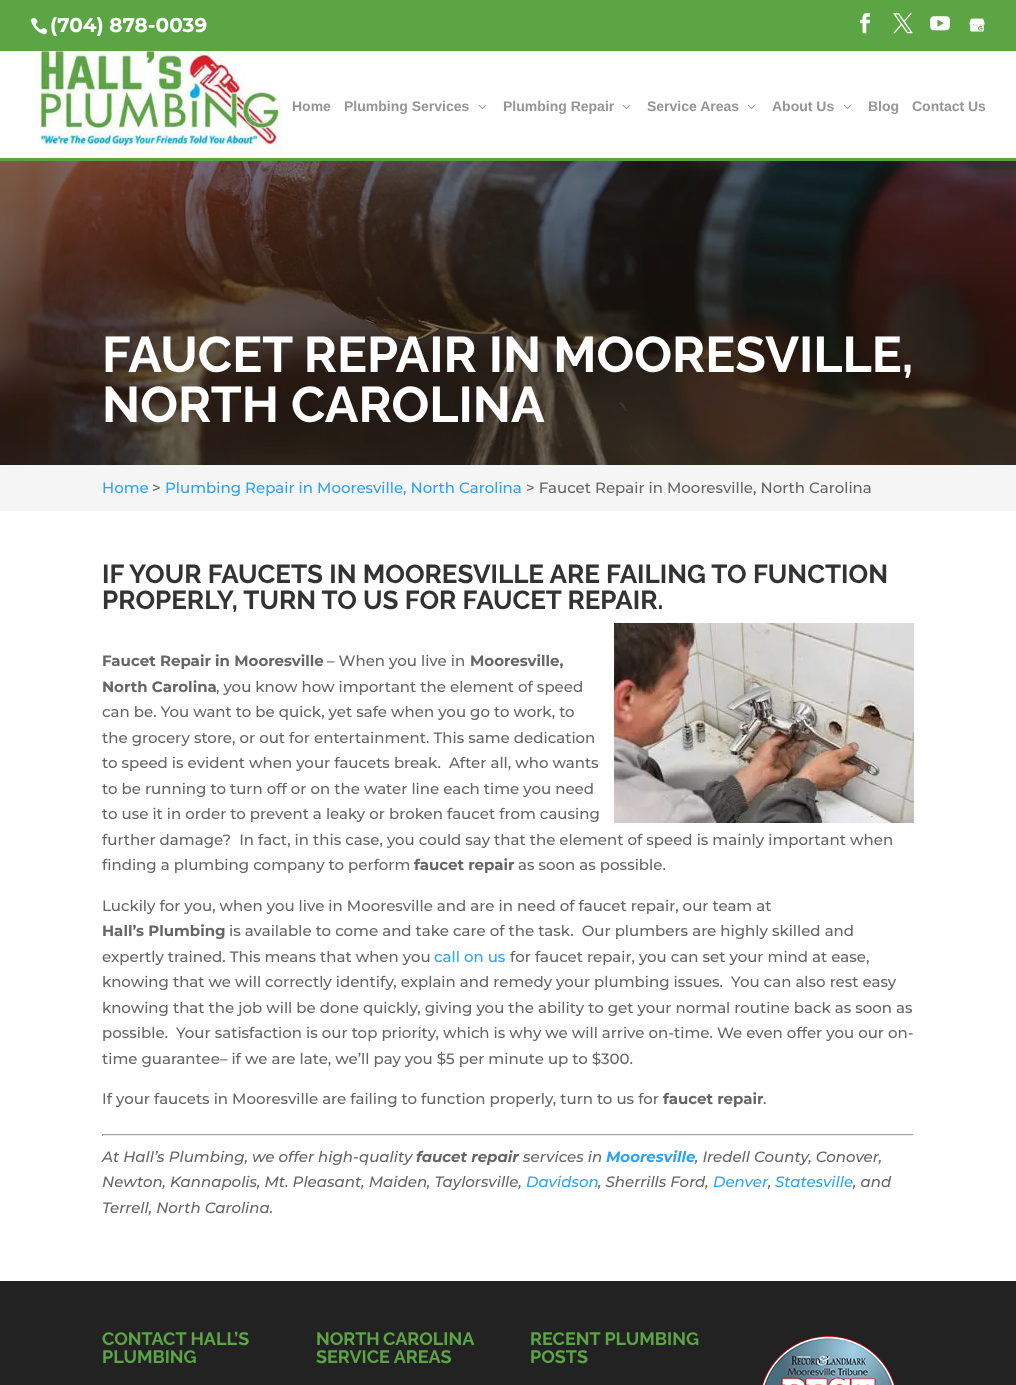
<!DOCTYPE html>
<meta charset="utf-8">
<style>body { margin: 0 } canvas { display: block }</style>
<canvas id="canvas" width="1016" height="1385"></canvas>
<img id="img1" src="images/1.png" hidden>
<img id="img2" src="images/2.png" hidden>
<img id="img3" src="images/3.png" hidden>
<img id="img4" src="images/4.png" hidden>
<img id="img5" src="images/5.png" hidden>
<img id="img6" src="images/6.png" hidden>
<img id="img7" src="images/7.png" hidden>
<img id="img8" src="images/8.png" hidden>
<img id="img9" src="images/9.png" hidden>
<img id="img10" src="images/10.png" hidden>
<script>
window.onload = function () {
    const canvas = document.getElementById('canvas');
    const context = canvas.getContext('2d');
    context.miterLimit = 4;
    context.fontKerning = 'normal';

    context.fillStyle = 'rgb(34, 34, 34)';
    context.fillRect(0, 0, 1016, 1385);
    context.fillStyle = 'rgb(91, 165, 68)';
    context.fillRect(0, 0, 1016, 51);
    context.drawImage(document.getElementById('img1'), 30, 17, 18, 18);
    context.drawImage(document.getElementById('img2'), 860, 13, 10, 21);
    context.drawImage(document.getElementById('img3'), 893, 13, 20, 21);
    context.drawImage(document.getElementById('img4'), 930, 16, 20, 15);
    context.drawImage(document.getElementById('img5'), 969, 18, 16, 14);
    context.fillStyle = 'rgb(255, 255, 255)';
    context.fillRect(0, 51, 1016, 107);
    context.fillStyle = 'rgb(91, 165, 68)';
    context.fillRect(0, 158, 1016, 3);
    context.drawImage(document.getElementById('img6'), 34, 51, 247, 101);
    context.drawImage(document.getElementById('img7'), 478, 104, 9, 5);
    context.drawImage(document.getElementById('img7'), 622, 104, 9, 5);
    context.drawImage(document.getElementById('img7'), 747, 104, 9, 5);
    context.drawImage(document.getElementById('img7'), 843, 104, 9, 5);
    context.drawImage(document.getElementById('img8'), 0, 161, 1016, 304);
    context.fillStyle = 'rgb(245, 245, 245)';
    context.fillRect(0, 465, 1016, 46);
    context.fillStyle = 'rgb(255, 255, 255)';
    context.fillRect(0, 511, 1016, 770);
    context.drawImage(document.getElementById('img9'), 614, 623, 300, 200);
    context.fillStyle = 'rgb(159, 159, 159)';
    context.fillRect(102, 1134, 812, 1);
    context.fillStyle = 'rgb(238, 238, 238)';
    context.fillRect(913, 1134, 1, 2);
    context.fillRect(102, 1135, 812, 1);
    context.fillStyle = 'rgb(159, 159, 159)';
    context.fillRect(102, 1134, 1, 2);
    context.drawImage(document.getElementById('img10'), 762, 1336, 133, 49);
    context.font = 'bold 20px Montserrat';
    context.fillStyle = 'rgb(255, 255, 255)';
    context.fillText('(704) 878-0039', 50, 32);
    context.font = 'bold 14px Liberation Sans';
    context.fillStyle = 'rgb(153, 149, 148)';
    context.fillText('Home', 292, 111);
    context.fillText('Plumbing Services', 344, 111);
    context.fillText('Plumbing Repair', 503, 111);
    context.fillText('Service Areas', 647, 111);
    context.fillText('About Us', 772, 111);
    context.fillText('Blog', 868, 111);
    context.fillText('Contact Us', 912, 111);
    context.font = 'bold 50px Raleway';
    context.fillStyle = 'rgb(255, 255, 255)';
    context.fillText('FAUCET REPAIR IN MOORESVILLE,', 102, 372);
    context.fillText('NORTH CAROLINA', 102, 422);
    context.font = '500 15px Montserrat';
    context.fillStyle = 'rgb(46, 163, 242)';
    context.fillText('Home', 102, 493);
    context.fillStyle = 'rgb(102, 102, 102)';
    context.fillText('>', 152, 493);
    context.fillStyle = 'rgb(46, 163, 242)';
    context.fillText('Plumbing Repair in Mooresville, North Carolina', 165, 493);
    context.fillStyle = 'rgb(102, 102, 102)';
    context.fillText('> Faucet Repair in Mooresville, North Carolina', 526, 493);
    context.font = 'bold 26px Raleway';
    context.fillStyle = 'rgb(51, 51, 51)';
    context.fillText('IF YOUR FAUCETS IN MOORESVILLE ARE FAILING TO FUNCTION', 102, 583);
    context.fillText('PROPERLY, TURN TO US FOR FAUCET REPAIR.', 102, 609);
    context.font = 'bold 15px Montserrat';
    context.fillStyle = 'rgb(102, 102, 102)';
    context.fillText('Faucet Repair in Mooresville', 102, 666);
    context.font = '500 15px Montserrat';
    context.fillText('– When you live in', 327, 666);
    context.font = 'bold 15px Montserrat';
    context.fillText('Mooresville,', 470, 666);
    context.fillText('North Carolina', 102, 692);
    context.font = '500 15px Montserrat';
    context.fillText(', you know how important the element of speed', 216, 692);
    context.fillText('can be. You want to be quick, yet safe when you go to work, to', 102, 717);
    context.fillText('the grocery store, or out for entertainment. This same dedication', 102, 743);
    context.fillText('to speed is evident when your faucets break.  After all, who wants', 102, 768);
    context.fillText('to be running to turn off or on the water line each time you need', 102, 794);
    context.fillText('to use it in order to prevent a leaky or broken faucet from causing', 102, 819);
    context.fillText('further damage?  In fact, in this case, you could say that the element of speed is mainly important when', 102, 845);
    context.fillText('finding a plumbing company to perform', 102, 870);
    context.font = 'bold 15px Montserrat';
    context.fillText('faucet repair', 414, 870);
    context.font = '500 15px Montserrat';
    context.fillText('as soon as possible.', 518, 870);
    context.fillText('Luckily for you, when you live in Mooresville and are in need of faucet repair, our team at', 102, 911);
    context.font = 'bold 15px Montserrat';
    context.fillText('Hall’s Plumbing', 102, 936);
    context.font = '500 15px Montserrat';
    context.fillText('is available to come and take care of the task.  Our plumbers are highly skilled and', 229, 936);
    context.fillText('expertly trained. This means that when you', 102, 962);
    context.fillStyle = 'rgb(46, 163, 242)';
    context.fillText('call on us', 434, 962);
    context.fillStyle = 'rgb(102, 102, 102)';
    context.fillText('for faucet repair, you can set your mind at ease,', 510, 962);
    context.fillText('knowing that we will correctly identify, explain and remedy your plumbing issues.  You can also rest easy', 102, 987);
    context.fillText('knowing that the job will be done quickly, giving you the ability to get your normal routine back as soon as', 102, 1013);
    context.fillText('possible.  Your satisfaction is our top priority, which is why we will arrive on-time. We even offer you our on-', 102, 1038);
    context.fillText('time guarantee– if we are late, we’ll pay you $5 per minute up to $300.', 102, 1064);
    context.fillText('If your faucets in Mooresville are failing to function properly, turn to us for', 102, 1104);
    context.font = 'bold 15px Montserrat';
    context.fillText('faucet repair', 663, 1104);
    context.font = '500 15px Montserrat';
    context.fillText('.', 763, 1104);
    context.font = 'italic 500 15px Montserrat';
    context.fillText('At Hall’s Plumbing, we offer high-quality', 102, 1162);
    context.font = 'italic bold 15px Montserrat';
    context.fillText('faucet repair', 416, 1162);
    context.font = 'italic 500 15px Montserrat';
    context.fillText('services in', 523, 1162);
    context.font = 'italic bold 15px Montserrat';
    context.fillStyle = 'rgb(46, 163, 242)';
    context.fillText('Mooresville', 606, 1162);
    context.font = 'italic 500 15px Montserrat';
    context.fillStyle = 'rgb(102, 102, 102)';
    context.fillText(', Iredell County, Conover,', 695, 1162);
    context.fillText('Newton, Kannapolis, Mt. Pleasant, Maiden, Taylorsville,', 102, 1187);
    context.fillStyle = 'rgb(46, 163, 242)';
    context.fillText('Davidson', 526, 1187);
    context.fillStyle = 'rgb(102, 102, 102)';
    context.fillText(', Sherrills Ford,', 598, 1187);
    context.fillStyle = 'rgb(46, 163, 242)';
    context.fillText('Denver', 713, 1187);
    context.fillText('Statesville', 775, 1187);
    context.fillStyle = 'rgb(102, 102, 102)';
    context.fillText(', and', 853, 1187);
    context.fillText(',', 768, 1187);
    context.fillText('Terrell, North Carolina.', 102, 1213);
    context.font = 'bold 18px Raleway';
    context.fillStyle = 'rgb(91, 165, 68)';
    context.fillText('CONTACT HALL’S', 102, 1345);
    context.fillText('PLUMBING', 102, 1363);
    context.wordSpacing = '-1px';
    context.fillText('NORTH CAROLINA', 316, 1345);
    context.wordSpacing = '0px';
    context.fillText('SERVICE AREAS', 316, 1363);
    context.fillText('RECENT PLUMBING', 530, 1345);
    context.fillText('POSTS', 530, 1363);
};
</script>
